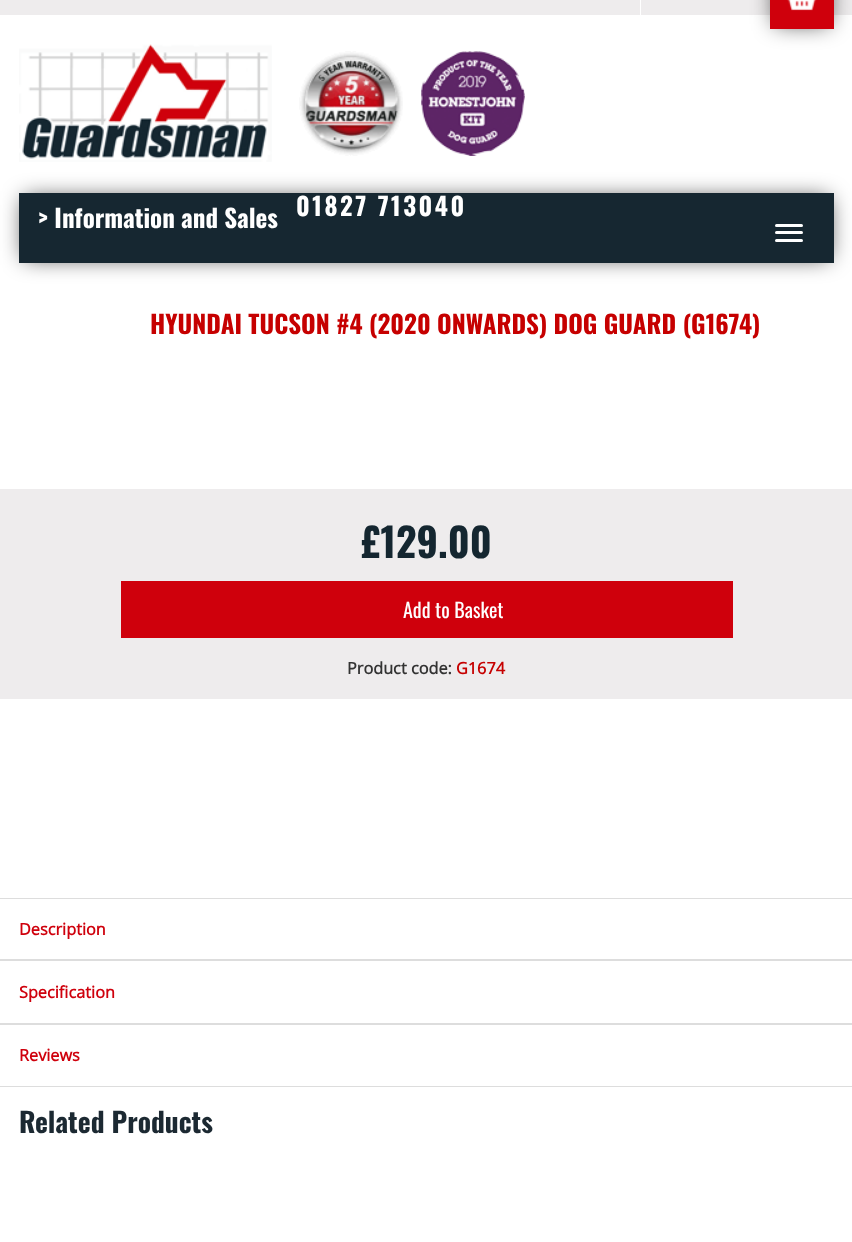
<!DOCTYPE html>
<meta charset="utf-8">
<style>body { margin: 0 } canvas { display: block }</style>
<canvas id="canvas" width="852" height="1242"></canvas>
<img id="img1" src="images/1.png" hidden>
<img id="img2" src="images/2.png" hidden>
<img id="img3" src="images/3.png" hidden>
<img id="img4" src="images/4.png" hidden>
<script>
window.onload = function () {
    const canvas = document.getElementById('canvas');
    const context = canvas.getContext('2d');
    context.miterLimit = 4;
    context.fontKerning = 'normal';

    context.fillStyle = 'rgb(255, 255, 255)';
    context.fillRect(0, 0, 852, 1242);
    context.fillStyle = 'rgb(238, 236, 237)';
    context.fillRect(0, 0, 852, 15);
    context.fillStyle = 'rgb(255, 255, 255)';
    context.fillRect(640, 0, 1, 15);
    context.fillStyle = 'rgba(0, 0, 0, 0.75)';
    context.filter = 'blur(11px)';
    context.beginPath();
    context.rect(775, -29, 54, 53);
    context.fill();
    context.filter = 'none';
    context.fillStyle = 'rgb(207, 0, 12)';
    context.fillRect(770, 0, 64, 29);
    context.drawImage(document.getElementById('img1'), 787, 0, 30, 11);
    context.drawImage(document.getElementById('img2'), 19, 44, 253, 118);
    context.drawImage(document.getElementById('img3'), 299, 51, 104, 105);
    context.drawImage(document.getElementById('img4'), 421, 51, 104, 105);
    context.fillStyle = 'rgba(0, 0, 0, 0.75)';
    context.filter = 'blur(11px)';
    context.beginPath();
    context.rect(24, 198, 805, 60);
    context.fill();
    context.filter = 'none';
    context.fillStyle = 'rgb(22, 39, 49)';
    context.fillRect(19, 193, 815, 70);
    context.fillStyle = 'rgb(255, 255, 255)';
    context.beginPath();
    context.roundRect(775, 224, 28, 3, 1.5);
    context.fill();
    context.beginPath();
    context.roundRect(775, 231, 28, 3, 1.5);
    context.fill();
    context.beginPath();
    context.roundRect(775, 239, 28, 3, 1.5);
    context.fill();
    context.fillStyle = 'rgb(238, 236, 237)';
    context.fillRect(0, 489, 852, 210);
    context.fillStyle = 'rgb(207, 0, 12)';
    context.fillRect(121, 581, 612, 57);
    context.fillStyle = 'rgb(221, 221, 221)';
    context.fillRect(0, 898, 852, 1);
    context.fillRect(0, 959, 852, 2);
    context.fillRect(0, 1023, 852, 2);
    context.fillRect(0, 1086, 852, 1);
    context.font = 'bold 25px Oswald';
    context.fillStyle = 'rgb(255, 255, 255)';
    context.fillText('> Information and Sales', 38, 228);
    context.letterSpacing = '2.5px';
    context.fillText('01827 713040', 296, 216);
    context.letterSpacing = '0px';
    context.fillStyle = 'rgb(198, 0, 0)';
    context.fillText('HYUNDAI TUCSON #4 (2020 ONWARDS) DOG GUARD (G1674)', 150, 334);
    context.font = 'bold 40px Oswald';
    context.fillStyle = 'rgb(20, 38, 48)';
    context.fillText('£129.00', 361, 558);
    context.font = '20px Oswald';
    context.fillStyle = 'rgb(255, 255, 255)';
    context.fillText('Add to Basket', 403, 618);
    context.font = 'bold 16.25px Open Sans';
    context.fillStyle = 'rgb(51, 51, 51)';
    context.fillText('Product code:', 347, 674);
    context.fillStyle = 'rgb(198, 0, 0)';
    context.fillText('G1674', 456, 674);
    context.fillStyle = 'rgb(207, 0, 12)';
    context.fillText('Description', 19, 935);
    context.fillText('Specification', 19, 998);
    context.fillText('Reviews', 19, 1061);
    context.font = 'bold 27.5px Oswald';
    context.fillStyle = 'rgb(28, 41, 50)';
    context.fillText('Related Products', 19, 1133);
};
</script>
